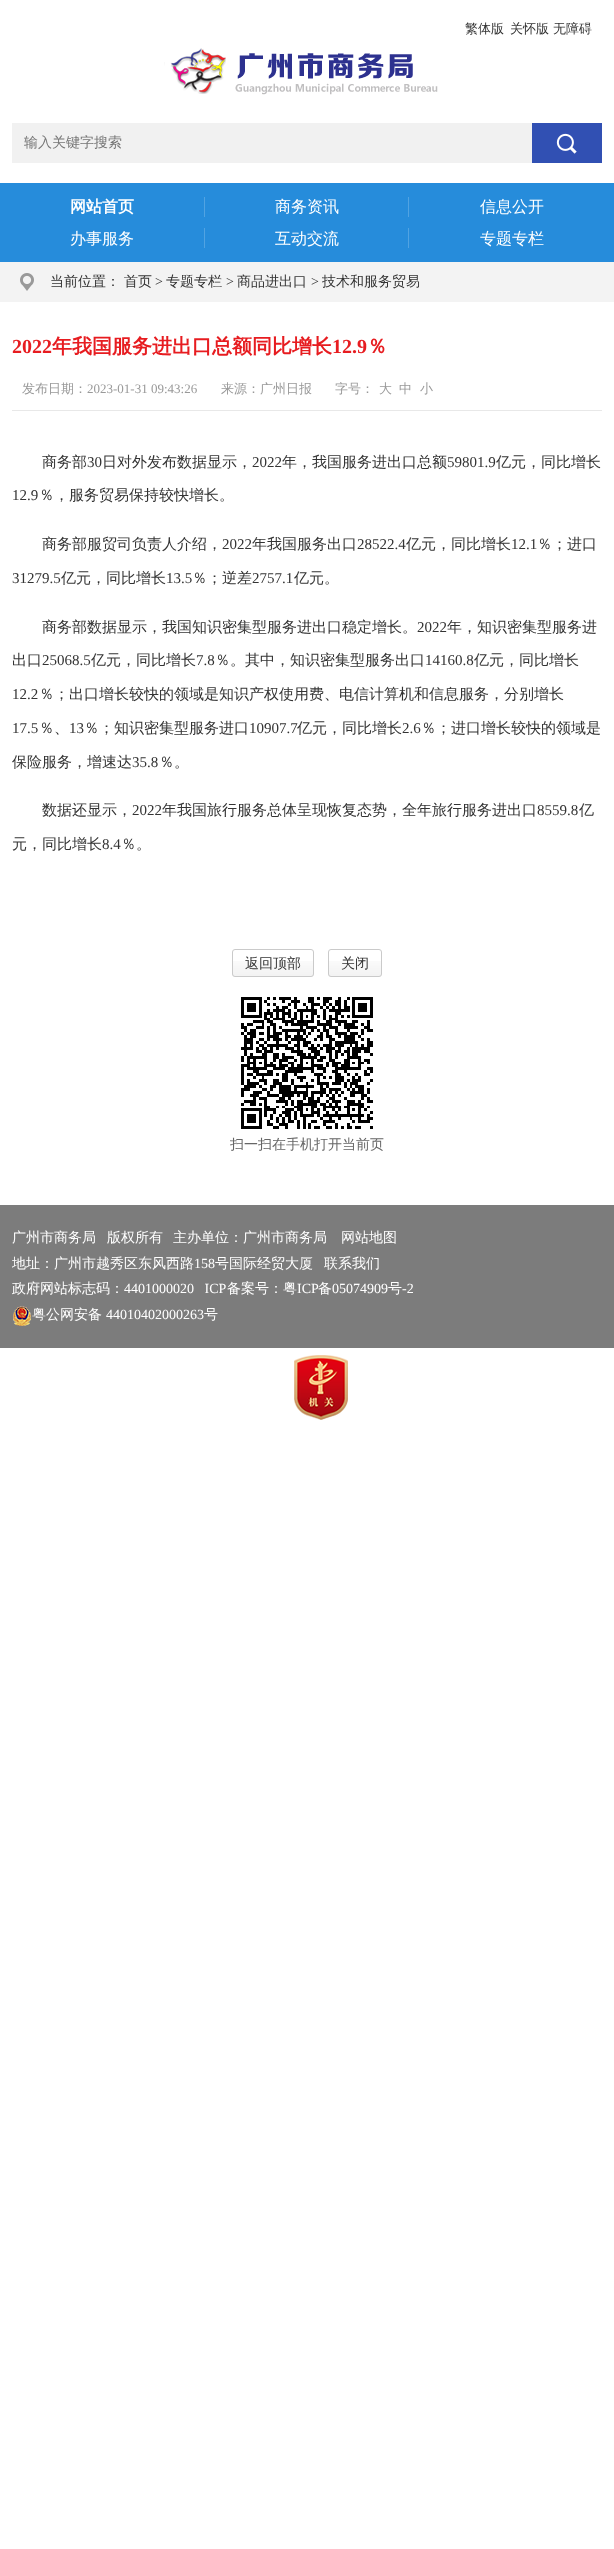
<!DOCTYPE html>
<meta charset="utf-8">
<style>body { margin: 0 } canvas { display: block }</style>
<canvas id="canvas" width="614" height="2549"></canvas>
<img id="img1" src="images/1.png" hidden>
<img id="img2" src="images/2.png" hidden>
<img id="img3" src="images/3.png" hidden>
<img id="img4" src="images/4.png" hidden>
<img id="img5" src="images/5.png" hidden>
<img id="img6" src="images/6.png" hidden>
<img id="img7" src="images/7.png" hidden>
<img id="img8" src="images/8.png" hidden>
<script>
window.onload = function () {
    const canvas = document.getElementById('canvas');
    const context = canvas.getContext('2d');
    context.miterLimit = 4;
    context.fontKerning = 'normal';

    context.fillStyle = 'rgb(255, 255, 255)';
    context.fillRect(0, 0, 614, 2549);
    context.drawImage(document.getElementById('img1'), 164, 48, 274, 47);
    context.fillStyle = 'rgb(241, 241, 241)';
    context.fillRect(12, 123, 520, 40);
    context.fillStyle = 'rgb(49, 80, 179)';
    context.fillRect(532, 123, 70, 40);
    context.drawImage(document.getElementById('img2'), 556, 133, 21, 21);
    context.fillStyle = 'rgb(38, 140, 219)';
    context.fillRect(0, 183, 614, 79);
    context.fillStyle = 'rgb(81, 163, 226)';
    context.fillRect(204, 197, 1, 20);
    context.fillRect(408, 197, 1, 20);
    context.fillRect(204, 228, 1, 20);
    context.fillRect(408, 228, 1, 20);
    context.fillStyle = 'rgb(243, 243, 243)';
    context.fillRect(0, 262, 614, 40);
    context.drawImage(document.getElementById('img3'), 20, 273, 14, 18);
    context.fillStyle = 'rgb(232, 232, 232)';
    context.fillRect(12, 410, 590, 1);
    context.drawImage(document.getElementById('img4'), 232, 961, 82, 16);
    context.beginPath();
    context.roundRect(232.5, 949.5, 81, 27, 2.5);
    context.strokeStyle = 'rgb(202, 202, 202)';
    context.stroke();
    context.drawImage(document.getElementById('img5'), 328, 961, 54, 16);
    context.beginPath();
    context.roundRect(328.5, 949.5, 53, 27, 2.5);
    context.stroke();
    context.drawImage(document.getElementById('img6'), 241, 997, 132, 132);
    context.fillStyle = 'rgb(124, 124, 124)';
    context.fillRect(0, 1205, 614, 143);
    context.drawImage(document.getElementById('img7'), 13, 1306, 18, 20);
    context.drawImage(document.getElementById('img8'), 294, 1355, 54, 65);
    context.font = '500 13px WenQuanYi Zen Hei';
    context.fillStyle = 'rgb(51, 51, 51)';
    context.fillText('繁体版', 465, 33);
    context.fillText('关怀版', 510, 33);
    context.fillText('无障碍', 553, 33);
    context.font = '500 14px WenQuanYi Zen Hei';
    context.fillStyle = 'rgb(117, 117, 117)';
    context.fillText('输入关键字搜索', 24, 147);
    context.font = 'bold 16px WenQuanYi Zen Hei';
    context.fillStyle = 'rgb(255, 255, 255)';
    context.fillText('网站首页', 70, 212);
    context.font = '500 16px WenQuanYi Zen Hei';
    context.fillText('商务资讯', 275, 212);
    context.fillText('信息公开', 480, 212);
    context.fillText('办事服务', 70, 244);
    context.fillText('互动交流', 275, 244);
    context.fillText('专题专栏', 480, 244);
    context.font = '500 14px WenQuanYi Zen Hei';
    context.fillStyle = 'rgb(51, 51, 51)';
    context.fillText('当前位置：', 50, 286);
    context.fillText('首页', 124, 286);
    context.font = '14px Liberation Serif';
    context.fillText('>', 155, 286);
    context.font = '500 14px WenQuanYi Zen Hei';
    context.fillText('专题专栏', 166, 286);
    context.font = '14px Liberation Serif';
    context.fillText('>', 226, 286);
    context.font = '500 14px WenQuanYi Zen Hei';
    context.fillText('商品进出口', 237, 286);
    context.font = '14px Liberation Serif';
    context.fillText('>', 311, 286);
    context.font = '500 14px WenQuanYi Zen Hei';
    context.fillText('技术和服务贸易', 322, 286);
    context.font = 'bold 20px Liberation Serif';
    context.fillStyle = 'rgb(231, 28, 32)';
    context.fillText('2022', 12, 353);
    context.font = 'bold 20px WenQuanYi Zen Hei';
    context.fillText('年我国服务进出口总额同比增长', 52, 353);
    context.font = 'bold 20px Liberation Serif';
    context.fillText('12.9', 332, 353);
    context.font = 'bold 20px WenQuanYi Zen Hei';
    context.fillText('％', 367, 353);
    context.font = '500 13px WenQuanYi Zen Hei';
    context.fillStyle = 'rgb(153, 153, 153)';
    context.fillText('发布日期：', 22, 393);
    context.font = '13px Liberation Serif';
    context.fillText('2023-01-31 09:43:26', 87, 393);
    context.font = '500 13px WenQuanYi Zen Hei';
    context.fillText('来源：广州日报', 221, 393);
    context.fillText('字号：', 335, 393);
    context.fillText('大', 379, 393);
    context.fillText('中', 399, 393);
    context.fillText('小', 420, 393);
    context.font = '500 15px WenQuanYi Zen Hei';
    context.fillStyle = 'rgb(51, 51, 51)';
    context.fillText('商务部', 42, 467);
    context.font = '15px Liberation Serif';
    context.fillText('30', 87, 467);
    context.font = '500 15px WenQuanYi Zen Hei';
    context.fillText('日对外发布数据显示，', 102, 467);
    context.font = '15px Liberation Serif';
    context.fillText('2022', 252, 467);
    context.font = '500 15px WenQuanYi Zen Hei';
    context.fillText('年，我国服务进出口总额', 282, 467);
    context.font = '15px Liberation Serif';
    context.fillText('59801.9', 447, 467);
    context.font = '500 15px WenQuanYi Zen Hei';
    context.fillText('亿元，同比增长', 496, 467);
    context.font = '15px Liberation Serif';
    context.fillText('12.9', 12, 500);
    context.font = '500 15px WenQuanYi Zen Hei';
    context.fillText('％，服务贸易保持较快增长。', 39, 500);
    context.fillText('商务部服贸司负责人介绍，', 42, 549);
    context.font = '15px Liberation Serif';
    context.fillText('2022', 222, 549);
    context.font = '500 15px WenQuanYi Zen Hei';
    context.fillText('年我国服务出口', 252, 549);
    context.font = '15px Liberation Serif';
    context.fillText('28522.4', 357, 549);
    context.font = '500 15px WenQuanYi Zen Hei';
    context.fillText('亿元，同比增长', 406, 549);
    context.font = '15px Liberation Serif';
    context.fillText('12.1', 511, 549);
    context.font = '500 15px WenQuanYi Zen Hei';
    context.fillText('％；进口', 537, 549);
    context.font = '15px Liberation Serif';
    context.fillText('31279.5', 12, 583);
    context.font = '500 15px WenQuanYi Zen Hei';
    context.fillText('亿元，同比增长', 61, 583);
    context.font = '15px Liberation Serif';
    context.fillText('13.5', 166, 583);
    context.font = '500 15px WenQuanYi Zen Hei';
    context.fillText('％；逆差', 192, 583);
    context.font = '15px Liberation Serif';
    context.fillText('2757.1', 252, 583);
    context.font = '500 15px WenQuanYi Zen Hei';
    context.fillText('亿元。', 294, 583);
    context.fillText('商务部数据显示，我国知识密集型服务进出口稳定增长。', 42, 632);
    context.font = '15px Liberation Serif';
    context.fillText('2022', 417, 632);
    context.font = '500 15px WenQuanYi Zen Hei';
    context.fillText('年，知识密集型服务进', 447, 632);
    context.fillText('出口', 12, 665);
    context.font = '15px Liberation Serif';
    context.fillText('25068.5', 42, 665);
    context.font = '500 15px WenQuanYi Zen Hei';
    context.fillText('亿元，同比增长', 91, 665);
    context.font = '15px Liberation Serif';
    context.fillText('7.8', 196, 665);
    context.font = '500 15px WenQuanYi Zen Hei';
    context.fillText('％。其中，知识密集型服务出口', 215, 665);
    context.font = '15px Liberation Serif';
    context.fillText('14160.8', 425, 665);
    context.font = '500 15px WenQuanYi Zen Hei';
    context.fillText('亿元，同比增长', 474, 665);
    context.font = '15px Liberation Serif';
    context.fillText('12.2', 12, 699);
    context.font = '500 15px WenQuanYi Zen Hei';
    context.fillText('％；出口增长较快的领域是知识产权使用费、电信计算机和信息服务，分别增长', 39, 699);
    context.font = '15px Liberation Serif';
    context.fillText('17.5', 12, 733);
    context.font = '500 15px WenQuanYi Zen Hei';
    context.fillText('％、', 39, 733);
    context.font = '15px Liberation Serif';
    context.fillText('13', 69, 733);
    context.font = '500 15px WenQuanYi Zen Hei';
    context.fillText('％；知识密集型服务进口', 84, 733);
    context.font = '15px Liberation Serif';
    context.fillText('10907.7', 249, 733);
    context.font = '500 15px WenQuanYi Zen Hei';
    context.fillText('亿元，同比增长', 297, 733);
    context.font = '15px Liberation Serif';
    context.fillText('2.6', 402, 733);
    context.font = '500 15px WenQuanYi Zen Hei';
    context.fillText('％；进口增长较快的领域是', 421, 733);
    context.fillText('保险服务，增速达', 12, 767);
    context.font = '15px Liberation Serif';
    context.fillText('35.8', 132, 767);
    context.font = '500 15px WenQuanYi Zen Hei';
    context.fillText('％。', 159, 767);
    context.fillText('数据还显示，', 42, 815);
    context.font = '15px Liberation Serif';
    context.fillText('2022', 132, 815);
    context.font = '500 15px WenQuanYi Zen Hei';
    context.fillText('年我国旅行服务总体呈现恢复态势，全年旅行服务进出口', 162, 815);
    context.font = '15px Liberation Serif';
    context.fillText('8559.8', 537, 815);
    context.font = '500 15px WenQuanYi Zen Hei';
    context.fillText('亿', 579, 815);
    context.fillText('元，同比增长', 12, 849);
    context.font = '15px Liberation Serif';
    context.fillText('8.4', 102, 849);
    context.font = '500 15px WenQuanYi Zen Hei';
    context.fillText('％。', 121, 849);
    context.font = '500 14px WenQuanYi Zen Hei';
    context.fillText('返回顶部', 245, 968);
    context.fillText('关闭', 341, 968);
    context.fillStyle = 'rgb(102, 102, 102)';
    context.fillText('扫一扫在手机打开当前页', 230, 1149);
    context.fillStyle = 'rgb(255, 255, 255)';
    context.fillText('广州市商务局', 12, 1242);
    context.fillText('版权所有', 107, 1242);
    context.fillText('主办单位：广州市商务局', 173, 1242);
    context.fillText('网站地图', 341, 1242);
    context.fillText('地址：广州市越秀区东风西路', 12, 1268);
    context.font = '14px Liberation Serif';
    context.fillText('158', 194, 1268);
    context.font = '500 14px WenQuanYi Zen Hei';
    context.fillText('号国际经贸大厦', 215, 1268);
    context.fillText('联系我们', 324, 1268);
    context.fillText('政府网站标志码：', 12, 1293);
    context.font = '14px Liberation Serif';
    context.fillText('4401000020   ICP', 124, 1293);
    context.font = '500 14px WenQuanYi Zen Hei';
    context.fillText('备案号：粤', 227, 1293);
    context.font = '14px Liberation Serif';
    context.fillText('ICP', 297, 1293);
    context.font = '500 14px WenQuanYi Zen Hei';
    context.fillText('备', 318, 1293);
    context.font = '14px Liberation Serif';
    context.fillText('05074909', 332, 1293);
    context.font = '500 14px WenQuanYi Zen Hei';
    context.fillText('号', 388, 1293);
    context.font = '14px Liberation Serif';
    context.fillText('-2', 402, 1293);
    context.font = '500 14px WenQuanYi Zen Hei';
    context.fillText('粤公网安备', 32, 1319);
    context.font = '14px Liberation Serif';
    context.fillText('44010402000263', 106, 1319);
    context.font = '500 14px WenQuanYi Zen Hei';
    context.fillText('号', 204, 1319);
};
</script>
